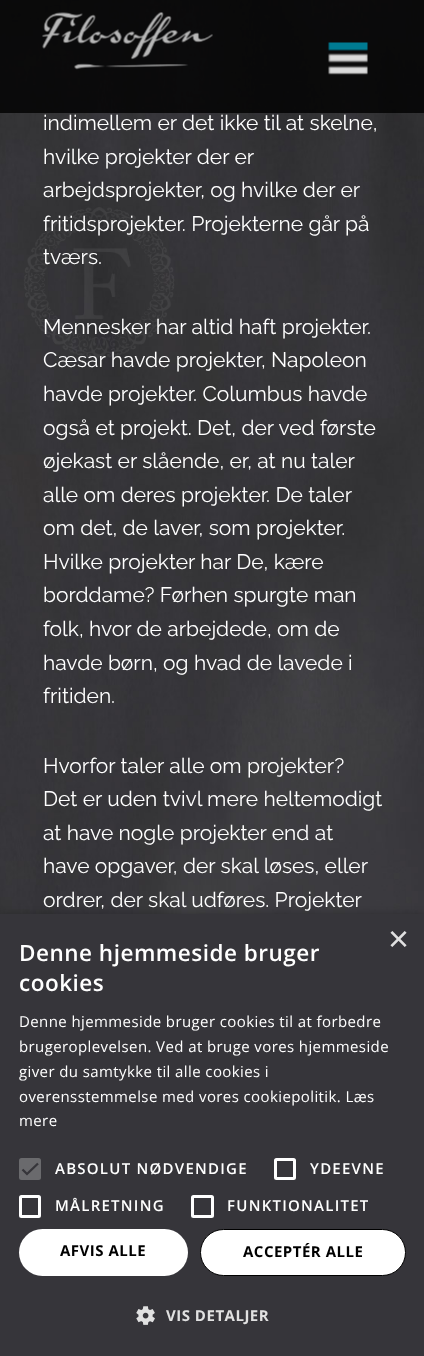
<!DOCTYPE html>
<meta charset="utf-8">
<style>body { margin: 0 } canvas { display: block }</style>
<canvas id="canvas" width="424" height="1356"></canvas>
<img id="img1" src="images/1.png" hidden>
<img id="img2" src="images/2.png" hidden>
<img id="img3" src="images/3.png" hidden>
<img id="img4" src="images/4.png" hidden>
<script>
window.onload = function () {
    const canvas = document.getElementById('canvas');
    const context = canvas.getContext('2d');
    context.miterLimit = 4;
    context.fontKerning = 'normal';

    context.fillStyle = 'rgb(255, 255, 255)';
    context.fillRect(0, 0, 424, 1356);
    context.drawImage(document.getElementById('img1'), 0, 0, 424, 914);
    context.fillStyle = 'rgba(0, 0, 0, 0.8)';
    context.fillRect(0, 0, 424, 113);
    context.drawImage(document.getElementById('img2'), 42, 12, 171, 58);
    context.drawImage(document.getElementById('img3'), 328, 42, 40, 33);
    context.fillStyle = 'rgba(0, 0, 0, 0.35)';
    context.filter = 'blur(5px)';
    context.beginPath();
    context.rect(1, 916, 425, 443);
    context.fill();
    context.filter = 'none';
    context.fillStyle = 'rgb(54, 53, 58)';
    context.fillRect(0, 914, 424, 442);
    context.fillStyle = 'rgb(106, 106, 109)';
    context.beginPath();
    context.roundRect(19, 1158, 22, 22, 2.5);
    context.fill();
    context.beginPath();
    context.moveTo(22.5, 1169.5);
    context.lineTo(27, 1174);
    context.lineTo(38, 1163.5);
    context.strokeStyle = 'rgb(54, 53, 58)';
    context.lineWidth = 2.3;
    context.stroke();
    context.beginPath();
    context.roundRect(275.5, 1159.5, 19, 19, 1);
    context.strokeStyle = 'rgb(255, 255, 255)';
    context.lineWidth = 3;
    context.stroke();
    context.beginPath();
    context.roundRect(20.5, 1196.5, 19, 20, 1);
    context.stroke();
    context.beginPath();
    context.roundRect(192.5, 1196.5, 20, 20, 1);
    context.stroke();
    context.fillStyle = 'rgb(255, 255, 255)';
    context.beginPath();
    context.roundRect(19, 1229, 169, 47, 23.5);
    context.fill();
    context.beginPath();
    context.roundRect(200.5, 1229.5, 205, 46, 23);
    context.fill();
    context.strokeStyle = 'rgb(0, 0, 0)';
    context.lineWidth = 1;
    context.stroke();
    context.drawImage(document.getElementById('img4'), 136, 1306, 19, 19);
    context.font = '21px Raleway';
    context.fillText('indimellem er det ikke til at skelne,', 43, 130);
    context.fillText('hvilke projekter der er', 43, 164);
    context.fillText('arbejdsprojekter, og hvilke der er', 43, 197);
    context.fillText('fritidsprojekter. Projekterne går på', 43, 231);
    context.fillText('tværs.', 43, 264);
    context.fillText('Mennesker har altid haft projekter.', 43, 334);
    context.fillText('Cæsar havde projekter, Napoleon', 43, 367);
    context.fillText('havde projekter. Columbus havde', 43, 401);
    context.fillText('også et projekt. Det, der ved første', 43, 435);
    context.fillText('øjekast er slående, er, at nu taler', 43, 468);
    context.fillText('alle om deres projekter. De taler', 43, 502);
    context.fillText('om det, de laver, som projekter.', 43, 535);
    context.fillText('Hvilke projekter har De, kære', 43, 569);
    context.fillText('borddame? Førhen spurgte man', 43, 602);
    context.fillText('folk, hvor de arbejdede, om de', 43, 636);
    context.fillText('havde børn, og hvad de lavede i', 43, 670);
    context.fillText('fritiden.', 43, 703);
    context.fillText('Hvorfor taler alle om projekter?', 43, 773);
    context.fillText('Det er uden tvivl mere heltemodigt', 43, 806);
    context.fillText('at have nogle projekter end at', 43, 840);
    context.fillText('have opgaver, der skal løses, eller', 43, 873);
    context.fillText('ordrer, der skal udføres. Projekter', 43, 907);
    context.font = '36px Liberation Sans';
    context.fillStyle = 'rgb(225, 225, 225)';
    context.fillText('×', 388, 951);
    context.letterSpacing = '0.5px';
    context.font = '600 22.5px Open Sans';
    context.fillStyle = 'rgb(255, 255, 255)';
    context.fillText('Denne hjemmeside bruger', 19, 961);
    context.fillText('cookies', 19, 991);
    context.letterSpacing = '0.4px';
    context.font = '15px Open Sans';
    context.fillText('Denne hjemmeside bruger cookies til at forbedre', 19, 1027);
    context.fillText('brugeroplevelsen. Ved at bruge vores hjemmeside', 19, 1052);
    context.fillText('giver du samtykke til alle cookies i', 19, 1077);
    context.fillText('overensstemmelse med vores cookiepolitik. Læs', 19, 1102);
    context.fillText('mere', 19, 1126);
    context.letterSpacing = '1.25px';
    context.font = '600 15px Open Sans';
    context.fillText('ABSOLUT NØDVENDIGE', 55, 1174);
    context.fillText('YDEEVNE', 310, 1174);
    context.fillText('MÅLRETNING', 55, 1211);
    context.fillText('FUNKTIONALITET', 227, 1211);
    context.letterSpacing = '0.5px';
    context.font = 'bold 15px Open Sans';
    context.fillStyle = 'rgb(0, 0, 0)';
    context.fillText('AFVIS ALLE', 60, 1256);
    context.fillText('ACCEPTÉR ALLE', 243, 1257);
    context.fillStyle = 'rgb(225, 225, 225)';
    context.fillText('VIS DETALJER', 166, 1321);
};
</script>
